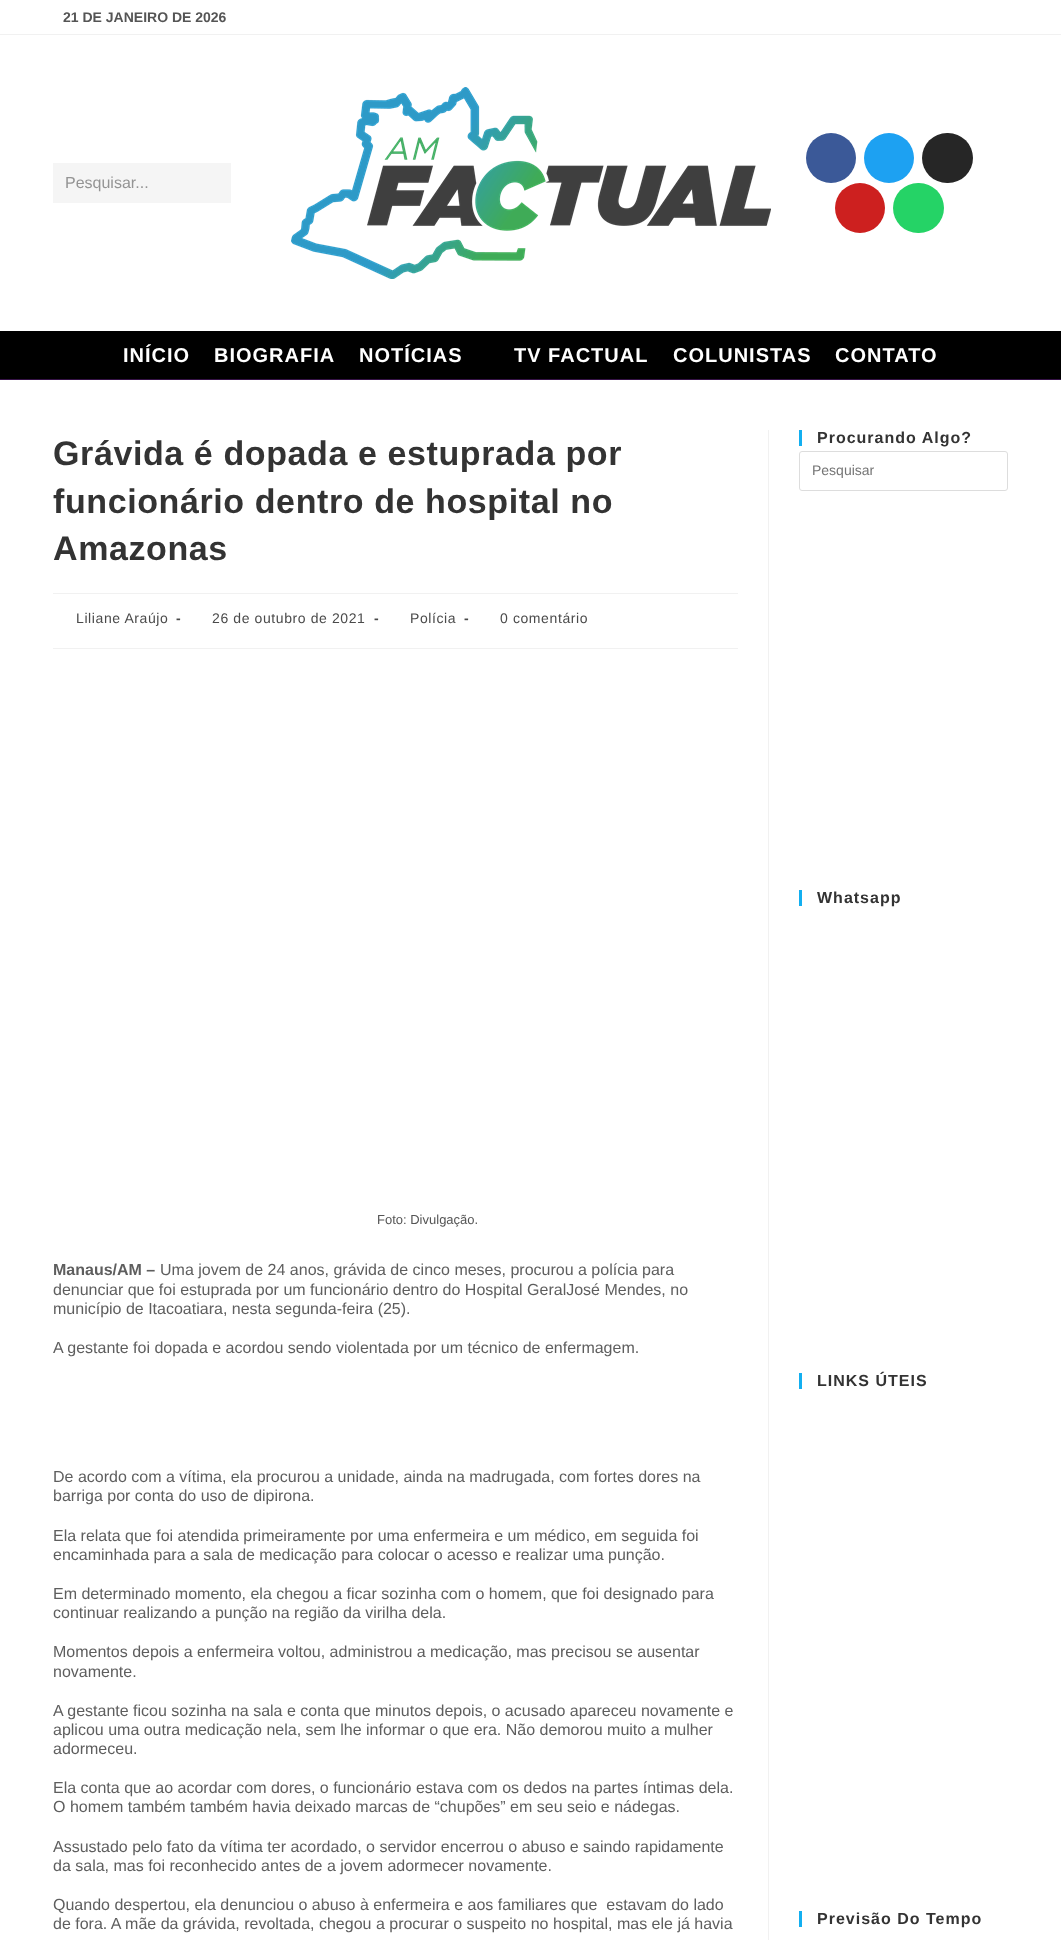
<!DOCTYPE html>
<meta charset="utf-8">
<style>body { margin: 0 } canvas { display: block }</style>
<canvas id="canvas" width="1061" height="1940"></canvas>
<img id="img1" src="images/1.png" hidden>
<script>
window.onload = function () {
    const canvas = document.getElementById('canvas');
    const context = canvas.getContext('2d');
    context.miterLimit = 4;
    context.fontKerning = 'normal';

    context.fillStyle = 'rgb(255, 255, 255)';
    context.fillRect(0, 0, 1061, 1940);
    context.fillStyle = 'rgb(241, 241, 241)';
    context.fillRect(0, 34, 1061, 1);
    context.fillStyle = 'rgb(53, 18, 70)';
    context.fillRect(0, 379, 1061, 1);
    context.fillStyle = 'rgb(245, 245, 245)';
    context.fillRect(53, 163, 178, 40);
    context.drawImage(document.getElementById('img1'), 291, 87, 480, 192);
    context.fillStyle = 'rgb(59, 89, 152)';
    context.beginPath();
    context.arc(831, 158, 25, 0, 2 * Math.PI);
    context.fill();
    context.fillStyle = 'rgb(29, 161, 242)';
    context.beginPath();
    context.arc(889, 158, 25, 0, 2 * Math.PI);
    context.fill();
    context.fillStyle = 'rgb(38, 38, 38)';
    context.beginPath();
    context.roundRect(922, 133, 51, 50, 25);
    context.fill();
    context.fillStyle = 'rgb(205, 32, 31)';
    context.beginPath();
    context.arc(860, 208, 25, 0, 2 * Math.PI);
    context.fill();
    context.fillStyle = 'rgb(37, 211, 102)';
    context.beginPath();
    context.roundRect(893, 183, 51, 50, 25);
    context.fill();
    context.fillStyle = 'rgb(0, 0, 0)';
    context.fillRect(0, 331, 1061, 48);
    context.fillStyle = 'rgb(241, 241, 241)';
    context.fillRect(768, 430, 1, 1510);
    context.fillRect(53, 593, 685, 1);
    context.fillRect(53, 648, 685, 1);
    context.fillStyle = 'rgb(19, 175, 240)';
    context.fillRect(799, 430, 3, 16);
    context.beginPath();
    context.roundRect(799.5, 451.5, 208, 39, 2.5);
    context.strokeStyle = 'rgb(221, 221, 221)';
    context.stroke();
    context.fillRect(799, 890, 3, 16);
    context.fillRect(799, 1373, 3, 16);
    context.fillRect(799, 1911, 3, 16);
    context.font = 'bold 14px Liberation Sans';
    context.fillStyle = 'rgb(85, 85, 85)';
    context.fillText('21 DE JANEIRO DE 2026', 63, 22);
    context.font = '16px Liberation Sans';
    context.fillStyle = 'rgb(148, 148, 148)';
    context.fillText('Pesquisar...', 65, 188);
    context.letterSpacing = '1px';
    context.font = 'bold 20px Liberation Sans';
    context.fillStyle = 'rgb(255, 255, 255)';
    context.fillText('INÍCIO', 123, 362);
    context.fillText('BIOGRAFIA', 214, 362);
    context.fillText('NOTÍCIAS', 359, 362);
    context.fillText('TV FACTUAL', 514, 362);
    context.fillText('COLUNISTAS', 673, 362);
    context.fillText('CONTATO', 835, 362);
    context.letterSpacing = '0.6px';
    context.font = 'bold 34px Liberation Sans';
    context.fillStyle = 'rgb(51, 51, 51)';
    context.fillText('Grávida é dopada e estuprada por', 53, 465);
    context.fillText('funcionário dentro de hospital no', 53, 513);
    context.fillText('Amazonas', 53, 560);
    context.font = '14px Liberation Sans';
    context.fillStyle = 'rgb(74, 74, 74)';
    context.fillText('Liliane Araújo', 76, 623);
    context.font = 'bold 14px Liberation Sans';
    context.fillText('-', 176, 623);
    context.font = '14px Liberation Sans';
    context.fillText('26 de outubro de 2021', 212, 623);
    context.font = 'bold 14px Liberation Sans';
    context.fillText('-', 374, 623);
    context.font = '14px Liberation Sans';
    context.fillText('Polícia', 410, 623);
    context.font = 'bold 14px Liberation Sans';
    context.fillText('-', 464, 623);
    context.font = '14px Liberation Sans';
    context.fillText('0 comentário', 500, 623);
    context.letterSpacing = '0px';
    context.font = '13px Liberation Sans';
    context.fillStyle = 'rgb(85, 85, 85)';
    context.fillText('Foto: Divulgação.', 377, 1224);
    context.font = 'bold 16px Liberation Sans';
    context.fillStyle = 'rgb(94, 94, 94)';
    context.fillText('Manaus/AM –', 53, 1275);
    context.font = '16px Liberation Sans';
    context.fillText('Uma jovem de 24 anos, grávida de cinco meses, procurou a polícia para', 160, 1275);
    context.fillText('denunciar que foi estuprada por um funcionário dentro do Hospital GeralJosé Mendes, no', 53, 1295);
    context.fillText('município de Itacoatiara, nesta segunda-feira (25).', 53, 1314);
    context.fillText('A gestante foi dopada e acordou sendo violentada por um técnico de enfermagem.', 53, 1353);
    context.fillText('De acordo com a vítima, ela procurou a unidade, ainda na madrugada, com fortes dores na', 53, 1482);
    context.fillText('barriga por conta do uso de dipirona.', 53, 1501);
    context.fillText('Ela relata que foi atendida primeiramente por uma enfermeira e um médico, em seguida foi', 53, 1541);
    context.fillText('encaminhada para a sala de medicação para colocar o acesso e realizar uma punção.', 53, 1560);
    context.fillText('Em determinado momento, ela chegou a ficar sozinha com o homem, que foi designado para', 53, 1599);
    context.fillText('continuar realizando a punção na região da virilha dela.', 53, 1618);
    context.fillText('Momentos depois a enfermeira voltou, administrou a medicação, mas precisou se ausentar', 53, 1657);
    context.fillText('novamente.', 53, 1677);
    context.fillText('A gestante ficou sozinha na sala e conta que minutos depois, o acusado apareceu novamente e', 53, 1716);
    context.fillText('aplicou uma outra medicação nela, sem lhe informar o que era. Não demorou muito a mulher', 53, 1735);
    context.fillText('adormeceu.', 53, 1754);
    context.fillText('Ela conta que ao acordar com dores, o funcionário estava com os dedos na partes íntimas dela.', 53, 1793);
    context.fillText('O homem também também havia deixado marcas de “chupões” em seu seio e nádegas.', 53, 1812);
    context.fillText('Assustado pelo fato da vítima ter acordado, o servidor encerrou o abuso e saindo rapidamente', 53, 1852);
    context.fillText('da sala, mas foi reconhecido antes de a jovem adormecer novamente.', 53, 1871);
    context.fillText('Quando despertou, ela denunciou o abuso à enfermeira e aos familiares que  estavam do lado', 53, 1910);
    context.fillText('de fora. A mãe da grávida, revoltada, chegou a procurar o suspeito no hospital, mas ele já havia', 53, 1929);
    context.letterSpacing = '1px';
    context.font = 'bold 16px Liberation Sans';
    context.fillStyle = 'rgb(51, 51, 51)';
    context.fillText('Procurando Algo?', 817, 443);
    context.letterSpacing = '0px';
    context.font = '14px Liberation Sans';
    context.fillStyle = 'rgb(117, 117, 117)';
    context.fillText('Pesquisar', 812, 475);
    context.letterSpacing = '1px';
    context.font = 'bold 16px Liberation Sans';
    context.fillStyle = 'rgb(51, 51, 51)';
    context.fillText('Whatsapp', 817, 903);
    context.fillText('LINKS ÚTEIS', 817, 1386);
    context.fillText('Previsão Do Tempo', 817, 1924);
};
</script>
